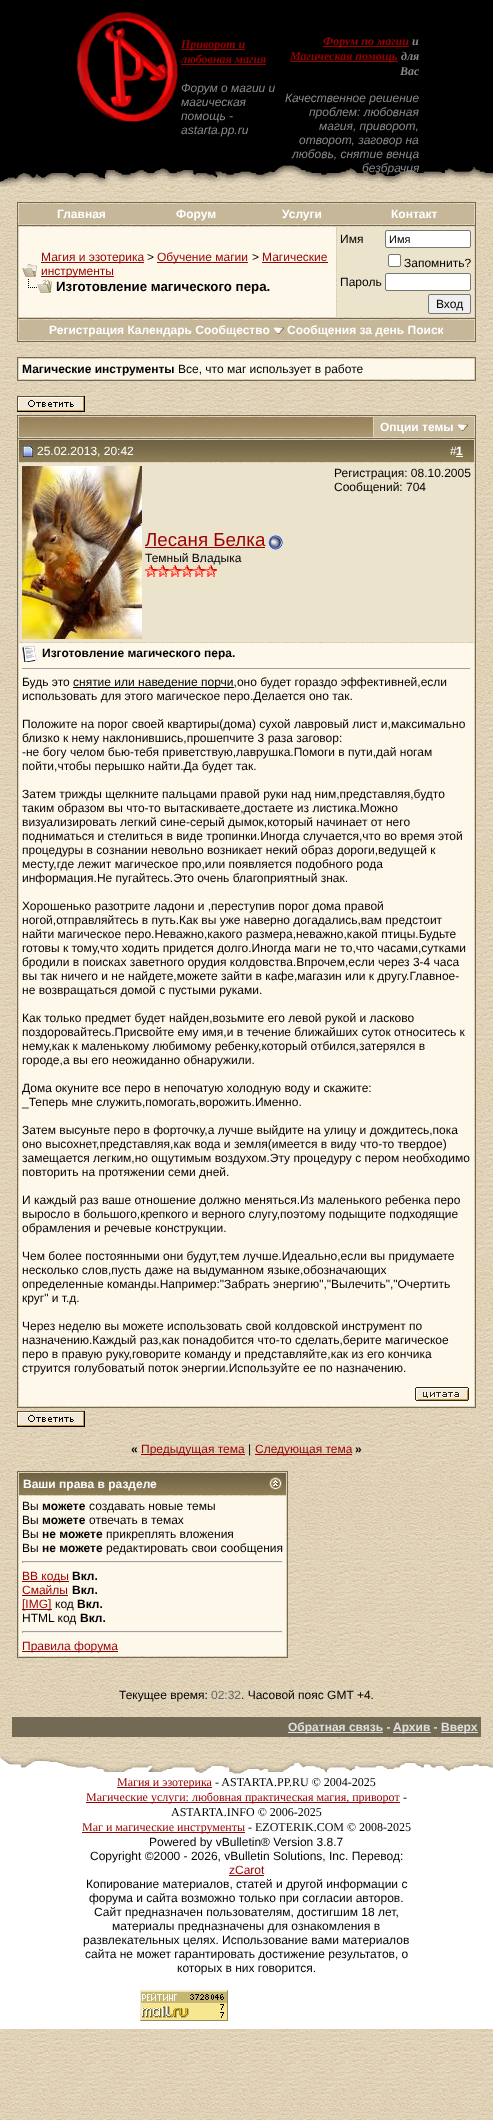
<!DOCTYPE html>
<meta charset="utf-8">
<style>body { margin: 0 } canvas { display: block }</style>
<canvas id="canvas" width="493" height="2120"></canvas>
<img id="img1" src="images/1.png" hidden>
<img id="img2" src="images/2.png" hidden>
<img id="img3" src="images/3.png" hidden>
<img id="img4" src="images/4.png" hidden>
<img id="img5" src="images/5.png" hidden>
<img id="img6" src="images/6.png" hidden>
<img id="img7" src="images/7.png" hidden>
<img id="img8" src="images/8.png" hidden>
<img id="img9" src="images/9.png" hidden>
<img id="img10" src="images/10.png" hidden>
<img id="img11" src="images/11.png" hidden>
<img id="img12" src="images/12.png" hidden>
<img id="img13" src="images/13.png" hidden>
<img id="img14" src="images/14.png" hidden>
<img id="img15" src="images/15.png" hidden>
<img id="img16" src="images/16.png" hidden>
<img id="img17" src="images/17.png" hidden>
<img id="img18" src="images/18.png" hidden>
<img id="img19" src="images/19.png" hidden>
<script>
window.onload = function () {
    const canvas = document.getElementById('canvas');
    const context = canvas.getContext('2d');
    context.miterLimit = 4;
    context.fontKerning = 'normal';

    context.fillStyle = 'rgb(255, 255, 255)';
    context.fillRect(0, 0, 493, 2120);
    context.drawImage(document.getElementById('img1'), 0, 187, 493, 1933);
    context.fillStyle = 'rgb(0, 0, 0)';
    context.fillRect(0, 0, 493, 165);
    context.drawImage(document.getElementById('img2'), 0, 165, 493, 22);
    context.drawImage(document.getElementById('img3'), 76, 11, 102, 111);
    context.fillStyle = 'rgb(153, 0, 0)';
    context.fillRect(181, 49, 64, 1);
    context.fillRect(181, 64, 85, 1);
    context.fillRect(323, 46, 86, 1);
    context.fillRect(290, 61, 108, 1);
    context.fillStyle = 'rgb(115, 106, 85)';
    context.fillRect(17, 202, 459, 1);
    context.fillRect(475, 202, 1, 23);
    context.fillRect(17, 202, 1, 23);
    context.fillStyle = 'rgb(197, 183, 151)';
    context.fillRect(19, 204, 455, 20);
    context.strokeStyle = 'rgb(115, 106, 85)';
    context.strokeRect(17.5, 225.5, 458, 93);
    context.fillStyle = 'rgb(254, 248, 235)';
    context.fillRect(19, 227, 317, 90);
    context.drawImage(document.getElementById('img4'), 22, 264, 15, 13);
    context.fillStyle = 'rgb(153, 0, 0)';
    context.fillRect(41, 262, 103, 1);
    context.fillRect(157, 262, 91, 1);
    context.fillRect(262, 262, 66, 1);
    context.fillRect(41, 276, 73, 1);
    context.drawImage(document.getElementById('img5'), 28, 279, 24, 14);
    context.fillStyle = 'rgb(236, 227, 205)';
    context.fillRect(337, 227, 137, 90);
    context.fillStyle = 'rgb(255, 255, 255)';
    context.beginPath();
    context.roundRect(385.5, 230.5, 85, 17, 1.5);
    context.fill();
    context.strokeStyle = 'rgb(118, 118, 118)';
    context.stroke();
    context.beginPath();
    context.roundRect(388.5, 254.5, 12, 12, 1.5);
    context.fill();
    context.stroke();
    context.beginPath();
    context.roundRect(385.5, 273.5, 85, 17, 1.5);
    context.fill();
    context.stroke();
    context.fillStyle = 'rgb(239, 239, 239)';
    context.beginPath();
    context.roundRect(428.5, 294.5, 42, 19, 1.5);
    context.fill();
    context.stroke();
    context.fillStyle = 'rgb(115, 106, 85)';
    context.fillRect(475, 319, 1, 23);
    context.fillRect(17, 341, 459, 1);
    context.fillRect(17, 319, 1, 23);
    context.fillStyle = 'rgb(197, 183, 151)';
    context.fillRect(19, 320, 455, 20);
    context.drawImage(document.getElementById('img6'), 273, 327, 11, 7);
    context.strokeStyle = 'rgb(115, 106, 85)';
    context.strokeRect(17.5, 357.5, 458, 23);
    context.fillStyle = 'rgb(254, 248, 235)';
    context.fillRect(19, 359, 455, 20);
    context.drawImage(document.getElementById('img7'), 17, 396, 68, 16);
    context.fillStyle = 'rgb(115, 106, 85)';
    context.fillRect(17, 415, 459, 1);
    context.fillRect(475, 415, 1, 23);
    context.fillRect(17, 415, 1, 23);
    context.drawImage(document.getElementById('img8'), 19, 417, 354, 20);
    context.fillStyle = 'rgb(197, 183, 151)';
    context.fillRect(374, 417, 100, 20);
    context.drawImage(document.getElementById('img6'), 457, 424, 11, 7);
    context.strokeRect(17.5, 438.5, 458, 969);
    context.drawImage(document.getElementById('img9'), 19, 440, 455, 22);
    context.drawImage(document.getElementById('img10'), 23, 446, 10, 11);
    context.fillStyle = 'rgb(255, 255, 255)';
    context.fillRect(456, 456, 7, 1);
    context.fillStyle = 'rgb(236, 227, 205)';
    context.fillRect(19, 463, 455, 179);
    context.drawImage(document.getElementById('img11'), 22, 466, 120, 173);
    context.fillStyle = 'rgb(153, 0, 0)';
    context.fillRect(145, 547, 120, 1);
    context.drawImage(document.getElementById('img12'), 268, 535, 15, 15);
    context.drawImage(document.getElementById('img13'), 145, 565, 12, 12);
    context.drawImage(document.getElementById('img13'), 157, 565, 12, 12);
    context.drawImage(document.getElementById('img13'), 169, 565, 12, 12);
    context.drawImage(document.getElementById('img13'), 181, 565, 12, 12);
    context.drawImage(document.getElementById('img13'), 193, 565, 12, 12);
    context.drawImage(document.getElementById('img13'), 205, 565, 12, 12);
    context.fillStyle = 'rgb(254, 248, 235)';
    context.fillRect(19, 643, 455, 763);
    context.drawImage(document.getElementById('img14'), 22, 646, 15, 16);
    context.fillStyle = 'rgb(159, 159, 159)';
    context.fillRect(22, 668, 449, 1);
    context.fillStyle = 'rgb(238, 238, 238)';
    context.fillRect(470, 668, 1, 1);
    context.fillStyle = 'rgb(0, 0, 0)';
    context.fillRect(73, 687, 161, 1);
    context.drawImage(document.getElementById('img15'), 415, 1387, 54, 14);
    context.drawImage(document.getElementById('img7'), 17, 1411, 68, 16);
    context.fillStyle = 'rgb(153, 0, 0)';
    context.fillRect(141, 1454, 104, 1);
    context.fillRect(255, 1454, 97, 1);
    context.strokeRect(17.5, 1471.5, 270, 186);
    context.drawImage(document.getElementById('img16'), 19, 1473, 267, 22);
    context.drawImage(document.getElementById('img17'), 269, 1477, 13, 13);
    context.fillStyle = 'rgb(254, 248, 235)';
    context.fillRect(19, 1496, 267, 160);
    context.fillStyle = 'rgb(159, 159, 159)';
    context.fillRect(22, 1561, 261, 1);
    context.fillStyle = 'rgb(238, 238, 238)';
    context.fillRect(282, 1561, 1, 2);
    context.fillRect(22, 1562, 261, 1);
    context.fillStyle = 'rgb(159, 159, 159)';
    context.fillRect(22, 1561, 1, 2);
    context.fillStyle = 'rgb(153, 0, 0)';
    context.fillRect(22, 1581, 47, 1);
    context.fillRect(22, 1595, 46, 1);
    context.fillRect(22, 1609, 30, 1);
    context.fillStyle = 'rgb(159, 159, 159)';
    context.fillRect(22, 1631, 261, 1);
    context.fillStyle = 'rgb(238, 238, 238)';
    context.fillRect(282, 1631, 1, 2);
    context.fillRect(22, 1632, 261, 1);
    context.fillStyle = 'rgb(159, 159, 159)';
    context.fillRect(22, 1631, 1, 2);
    context.fillStyle = 'rgb(153, 0, 0)';
    context.fillRect(22, 1651, 96, 1);
    context.fillStyle = 'rgb(115, 106, 85)';
    context.fillRect(12, 1717, 469, 20);
    context.fillStyle = 'rgb(224, 224, 224)';
    context.fillRect(288, 1732, 95, 1);
    context.fillRect(393, 1732, 38, 1);
    context.fillRect(441, 1732, 37, 1);
    context.fillStyle = 'rgb(255, 255, 255)';
    context.fillRect(0, 1774, 493, 255);
    context.drawImage(document.getElementById('img18'), 0, 1752, 493, 22);
    context.fillStyle = 'rgb(153, 0, 0)';
    context.fillRect(117, 1787, 95, 1);
    context.fillRect(86, 1802, 314, 1);
    context.fillRect(82, 1832, 163, 1);
    context.fillRect(229, 1875, 35, 1);
    context.drawImage(document.getElementById('img19'), 140, 1990, 88, 31);
    context.font = 'italic bold 12px Liberation Serif';
    context.fillText('Приворот и', 181, 48);
    context.fillText('любовная магия', 181, 63);
    context.font = 'italic 12px Liberation Sans';
    context.fillStyle = 'rgb(136, 136, 136)';
    context.fillText('Форум о магии и', 181, 92);
    context.fillText('магическая', 181, 106);
    context.fillText('помощь -', 181, 120);
    context.fillText('astarta.pp.ru', 181, 134);
    context.font = 'italic bold 12px Liberation Serif';
    context.fillStyle = 'rgb(153, 0, 0)';
    context.fillText('Форум по магии', 323, 45);
    context.fillStyle = 'rgb(136, 136, 136)';
    context.fillText('и', 412, 45);
    context.fillStyle = 'rgb(153, 0, 0)';
    context.fillText('Магическая помощь', 290, 60);
    context.fillStyle = 'rgb(136, 136, 136)';
    context.fillText('для', 401, 60);
    context.fillText('Вас', 400, 75);
    context.font = 'italic 12px Liberation Sans';
    context.fillText('Качественное решение', 285, 102);
    context.fillText('проблем: любовная', 309, 116);
    context.fillText('магия, приворот,', 319, 130);
    context.fillText('отворот, заговор на', 299, 144);
    context.fillText('любовь, снятие венца', 292, 158);
    context.fillText('безбрачия', 362, 172);
    context.font = 'bold 12px Liberation Sans';
    context.fillStyle = 'rgb(255, 255, 255)';
    context.fillText('Главная', 57, 218);
    context.fillText('Форум', 176, 218);
    context.fillText('Услуги', 282, 218);
    context.fillText('Контакт', 391, 218);
    context.font = '12px Liberation Sans';
    context.fillStyle = 'rgb(153, 0, 0)';
    context.fillText('Магия и эзотерика', 41, 261);
    context.fillStyle = 'rgb(0, 0, 0)';
    context.fillText('>', 147, 261);
    context.fillStyle = 'rgb(153, 0, 0)';
    context.fillText('Обучение магии', 157, 261);
    context.fillStyle = 'rgb(0, 0, 0)';
    context.fillText('>', 252, 261);
    context.fillStyle = 'rgb(153, 0, 0)';
    context.fillText('Магические', 262, 261);
    context.fillText('инструменты', 41, 275);
    context.font = 'bold 13.3px Liberation Sans';
    context.fillStyle = 'rgb(0, 0, 0)';
    context.fillText('Изготовление магического пера.', 56, 291);
    context.font = '12px Liberation Sans';
    context.fillText('Имя', 340, 243);
    context.font = '11px Liberation Sans';
    context.fillText('Имя', 389, 243);
    context.font = '12px Liberation Sans';
    context.fillText('Запомнить?', 404, 267);
    context.fillText('Пароль', 340, 286);
    context.fillText('Вход', 436, 308);
    context.font = 'bold 12px Liberation Sans';
    context.fillStyle = 'rgb(255, 255, 255)';
    context.fillText('Регистрация Календарь Сообщество', 49, 334);
    context.fillText('Сообщения за день Поиск', 287, 334);
    context.fillStyle = 'rgb(0, 0, 0)';
    context.fillText('Магические инструменты', 22, 373);
    context.font = '12px Liberation Sans';
    context.fillText('Все, что маг использует в работе', 178, 373);
    context.font = 'bold 12px Liberation Sans';
    context.fillStyle = 'rgb(255, 255, 255)';
    context.fillText('Опции темы', 380, 431);
    context.font = '12px Liberation Sans';
    context.fillText('25.02.2013, 20:42', 37, 455);
    context.fillText('#', 450, 455);
    context.font = 'bold 12px Liberation Sans';
    context.fillText('1', 456, 455);
    context.font = '12px Liberation Sans';
    context.fillStyle = 'rgb(0, 0, 0)';
    context.fillText('Регистрация: 08.10.2005', 334, 477);
    context.fillText('Сообщений: 704', 334, 491);
    context.font = '18.75px Liberation Sans';
    context.fillStyle = 'rgb(153, 0, 0)';
    context.fillText('Лесаня Белка', 145, 546);
    context.font = '12px Liberation Sans';
    context.fillStyle = 'rgb(0, 0, 0)';
    context.fillText('Темный Владыка', 145, 562);
    context.font = 'bold 12px Liberation Sans';
    context.fillText('Изготовление магического пера.', 42, 657);
    context.font = '12px Liberation Sans';
    context.fillText('Будь это', 22, 686);
    context.fillText('снятие или наведение порчи,оно будет гораздо эффективней,если', 73, 686);
    context.fillText('использовать для этого магическое перо.Делается оно так.', 22, 700);
    context.fillText('Положите на порог своей квартиры(дома) сухой лавровый лист и,максимально', 22, 728);
    context.fillText('близко к нему наклонившись,прошепчите 3 раза заговор:', 22, 742);
    context.fillText('-не богу челом бью-тебя приветствую,лаврушка.Помоги в пути,дай ногам', 22, 756);
    context.fillText('пойти,чтобы перышко найти.Да будет так.', 22, 770);
    context.fillText('Затем трижды щелкните пальцами правой руки над ним,представляя,будто', 22, 798);
    context.fillText('таким образом вы что-то вытаскиваете,достаете из листика.Можно', 22, 812);
    context.fillText('визуализировать легкий сине-серый дымок,который начинает от него', 22, 826);
    context.fillText('подниматься и стелиться в виде тропинки.Иногда случается,что во время этой', 22, 840);
    context.fillText('процедуры в сознании невольно возникает некий образ дороги,ведущей к', 22, 854);
    context.fillText('месту,где лежит магическое про,или появляется подобного рода', 22, 868);
    context.fillText('информация.Не пугайтесь.Это очень благоприятный знак.', 22, 882);
    context.fillText('Хорошенько разотрите ладони и ,переступив порог дома правой', 22, 910);
    context.fillText('ногой,отправляйтесь в путь.Как вы уже наверно догадались,вам предстоит', 22, 924);
    context.fillText('найти магическое перо.Неважно,какого размера,неважно,какой птицы.Будьте', 22, 938);
    context.fillText('готовы к тому,что ходить придется долго.Иногда маги не то,что часами,сутками', 22, 952);
    context.fillText('бродили в поисках заветного орудия колдовства.Впрочем,если через 3-4 часа', 22, 966);
    context.fillText('вы так ничего и не найдете,можете зайти в кафе,магазин или к другу.Главное-', 22, 980);
    context.fillText('не возвращаться домой с пустыми руками.', 22, 994);
    context.fillText('Как только предмет будет найден,возьмите его левой рукой и ласково', 22, 1022);
    context.fillText('поздоровайтесь.Присвойте ему имя,и в течение ближайших суток относитесь к', 22, 1036);
    context.fillText('нему,как к маленькому любимому ребенку,который отбился,затерялся в', 22, 1050);
    context.fillText('городе,а вы его неожиданно обнаружили.', 22, 1064);
    context.fillText('Дома окуните все перо в непочатую холодную воду и скажите:', 22, 1092);
    context.fillText('_Теперь мне служить,помогать,ворожить.Именно.', 22, 1106);
    context.fillText('Затем высуньте перо в форточку,а лучше выйдите на улицу и дождитесь,пока', 22, 1134);
    context.fillText('оно высохнет,представляя,как вода и земля(имеется в виду что-то твердое)', 22, 1148);
    context.fillText('замещается легким,но ощутимым воздухом.Эту процедуру с пером необходимо', 22, 1162);
    context.fillText('повторить на протяжении семи дней.', 22, 1176);
    context.fillText('И каждый раз ваше отношение должно меняться.Из маленького ребенка перо', 22, 1204);
    context.fillText('выросло в большого,крепкого и верного слугу,поэтому подыщите подходящие', 22, 1218);
    context.fillText('обрамления и речевые конструкции.', 22, 1232);
    context.fillText('Чем более постоянными они будут,тем лучше.Идеально,если вы придумаете', 22, 1260);
    context.fillText('несколько слов,пусть даже на выдуманном языке,обозначающих', 22, 1274);
    context.fillText('определенные команды.Например:"Забрать энергию","Вылечить","Очертить', 22, 1288);
    context.fillText('круг" и т.д.', 22, 1302);
    context.fillText('Через неделю вы можете использовать свой колдовской инструмент по', 22, 1330);
    context.fillText('назначению.Каждый раз,как понадобится что-то сделать,берите магическое', 22, 1344);
    context.fillText('перо в правую руку,говорите команду и представляйте,как из его кончика', 22, 1358);
    context.fillText('струится голубоватый поток энергии.Используйте ее по назначению.', 22, 1372);
    context.font = 'bold 12px Liberation Sans';
    context.fillText('«', 131, 1453);
    context.font = '12px Liberation Sans';
    context.fillStyle = 'rgb(153, 0, 0)';
    context.fillText('Предыдущая тема', 141, 1453);
    context.fillStyle = 'rgb(0, 0, 0)';
    context.fillText('|', 248, 1453);
    context.fillStyle = 'rgb(153, 0, 0)';
    context.fillText('Следующая тема', 255, 1453);
    context.font = 'bold 12px Liberation Sans';
    context.fillStyle = 'rgb(0, 0, 0)';
    context.fillText('»', 355, 1453);
    context.fillStyle = 'rgb(255, 255, 255)';
    context.fillText('Ваши права в разделе', 23, 1488);
    context.font = '12px Liberation Sans';
    context.fillStyle = 'rgb(0, 0, 0)';
    context.fillText('Вы', 22, 1510);
    context.font = 'bold 12px Liberation Sans';
    context.fillText('можете', 42, 1510);
    context.font = '12px Liberation Sans';
    context.fillText('создавать новые темы', 89, 1510);
    context.fillText('Вы', 22, 1524);
    context.font = 'bold 12px Liberation Sans';
    context.fillText('можете', 42, 1524);
    context.font = '12px Liberation Sans';
    context.fillText('отвечать в темах', 89, 1524);
    context.fillText('Вы', 22, 1538);
    context.font = 'bold 12px Liberation Sans';
    context.fillText('не можете', 42, 1538);
    context.font = '12px Liberation Sans';
    context.fillText('прикреплять вложения', 106, 1538);
    context.fillText('Вы', 22, 1552);
    context.font = 'bold 12px Liberation Sans';
    context.fillText('не можете', 42, 1552);
    context.font = '12px Liberation Sans';
    context.fillText('редактировать свои сообщения', 106, 1552);
    context.fillStyle = 'rgb(153, 0, 0)';
    context.fillText('BB коды', 22, 1580);
    context.font = 'bold 12px Liberation Sans';
    context.fillStyle = 'rgb(0, 0, 0)';
    context.fillText('Вкл.', 72, 1580);
    context.font = '12px Liberation Sans';
    context.fillStyle = 'rgb(153, 0, 0)';
    context.fillText('Смайлы', 22, 1594);
    context.font = 'bold 12px Liberation Sans';
    context.fillStyle = 'rgb(0, 0, 0)';
    context.fillText('Вкл.', 72, 1594);
    context.font = '12px Liberation Sans';
    context.fillStyle = 'rgb(153, 0, 0)';
    context.fillText('[IMG]', 22, 1608);
    context.fillStyle = 'rgb(0, 0, 0)';
    context.fillText('код', 55, 1608);
    context.font = 'bold 12px Liberation Sans';
    context.fillText('Вкл.', 77, 1608);
    context.font = '12px Liberation Sans';
    context.fillText('HTML код', 22, 1622);
    context.font = 'bold 12px Liberation Sans';
    context.fillText('Вкл.', 80, 1622);
    context.font = '12px Liberation Sans';
    context.fillStyle = 'rgb(153, 0, 0)';
    context.fillText('Правила форума', 22, 1650);
    context.fillStyle = 'rgb(0, 0, 0)';
    context.fillText('Текущее время:', 119, 1699);
    context.fillStyle = 'rgb(102, 102, 102)';
    context.fillText('02:32', 211, 1699);
    context.fillStyle = 'rgb(0, 0, 0)';
    context.fillText('. Часовой пояс GMT +4.', 241, 1699);
    context.font = 'bold 12px Liberation Sans';
    context.fillStyle = 'rgb(224, 224, 224)';
    context.fillText('Обратная связь -', 288, 1731);
    context.fillText('Архив -', 393, 1731);
    context.fillText('Вверх', 441, 1731);
    context.font = '12px Liberation Serif';
    context.fillStyle = 'rgb(153, 0, 0)';
    context.fillText('Магия и эзотерика', 117, 1786);
    context.fillStyle = 'rgb(0, 0, 0)';
    context.fillText('- ASTARTA.PP.RU © 2004-2025', 215, 1786);
    context.fillStyle = 'rgb(153, 0, 0)';
    context.fillText('Магические услуги: любовная практическая магия, приворот', 86, 1801);
    context.fillStyle = 'rgb(0, 0, 0)';
    context.fillText('-', 403, 1801);
    context.fillText('ASTARTA.INFO © 2006-2025', 171, 1816);
    context.fillStyle = 'rgb(153, 0, 0)';
    context.fillText('Маг и магические инструменты', 82, 1831);
    context.fillStyle = 'rgb(0, 0, 0)';
    context.fillText('- EZOTERIK.COM © 2008-2025', 248, 1831);
    context.font = '12px Liberation Sans';
    context.fillText('Powered by vBulletin® Version 3.8.7', 149, 1846);
    context.fillText('Copyright ©2000 - 2026, vBulletin Solutions, Inc. Перевод:', 90, 1860);
    context.fillStyle = 'rgb(153, 0, 0)';
    context.fillText('zCarot', 229, 1874);
    context.fillStyle = 'rgb(0, 0, 0)';
    context.fillText('Копирование материалов, статей и другой информации с', 86, 1888);
    context.fillText('форума и сайта возможно только при согласии авторов.', 89, 1902);
    context.fillText('Сайт предназначен пользователям, достигшим 18 лет,', 94, 1916);
    context.fillText('материалы предназначены для ознакомления в', 112, 1930);
    context.fillText('развлекательных целях. Использование вами материалов', 83, 1944);
    context.fillText('сайта не может гарантировать достижение результатов, о', 85, 1958);
    context.fillText('которых в них говорится.', 177, 1972);
};
</script>
